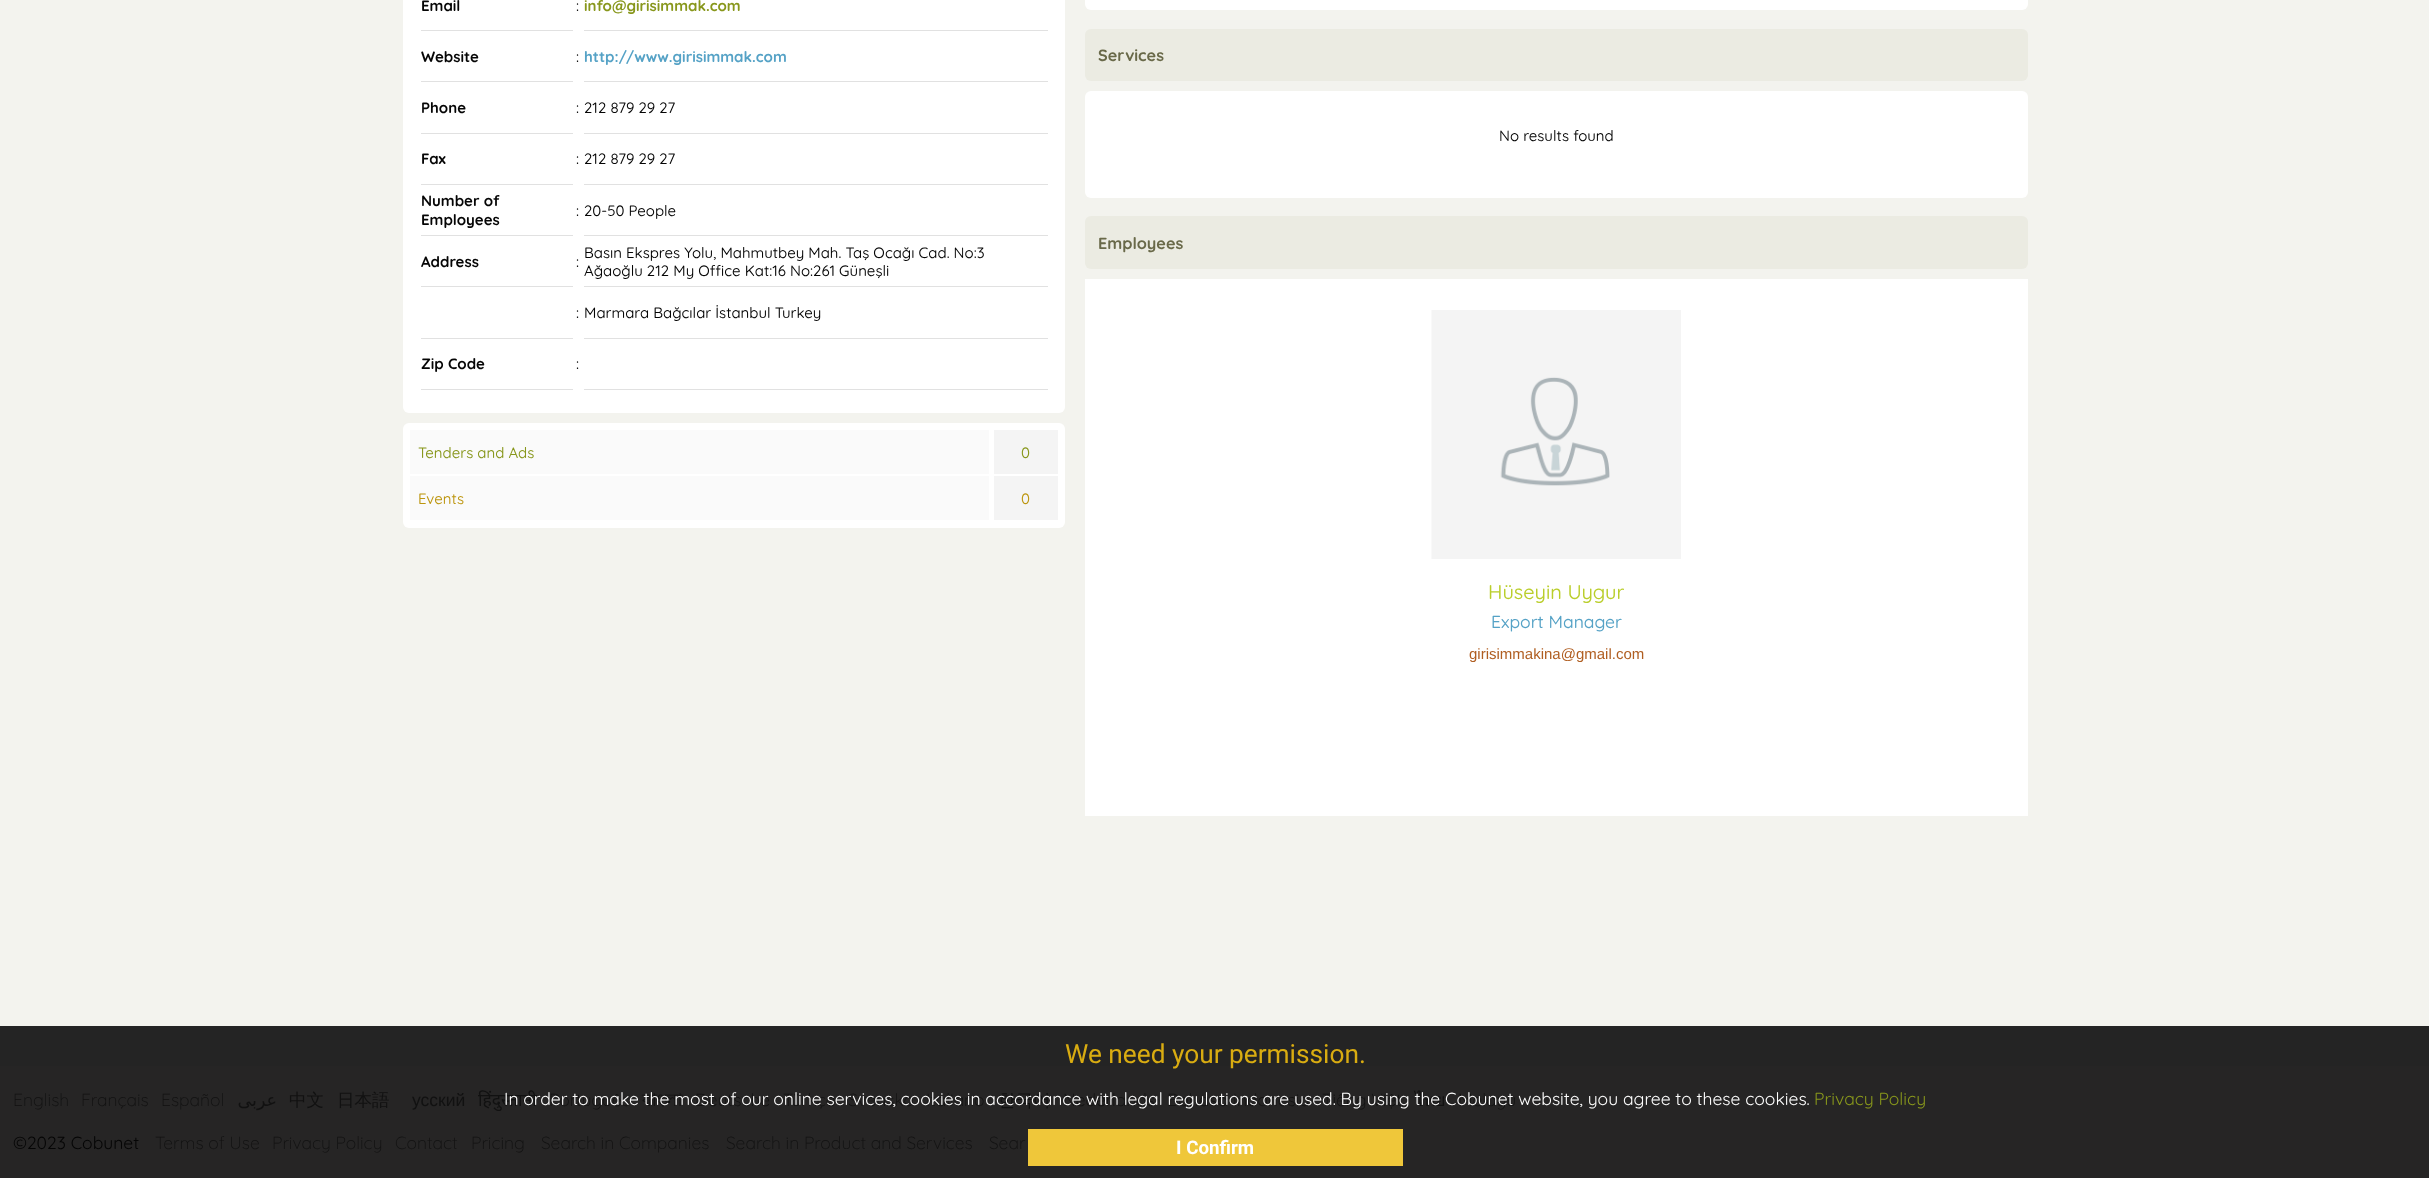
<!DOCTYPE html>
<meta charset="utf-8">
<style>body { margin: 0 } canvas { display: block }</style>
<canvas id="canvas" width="2429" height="1178"></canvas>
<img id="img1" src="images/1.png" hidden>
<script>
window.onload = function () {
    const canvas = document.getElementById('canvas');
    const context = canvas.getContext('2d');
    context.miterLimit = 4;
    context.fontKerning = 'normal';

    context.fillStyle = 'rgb(243, 243, 238)';
    context.fillRect(0, 0, 2429, 1178);
    context.fillStyle = 'rgb(36, 36, 36)';
    context.fillRect(0, 1026, 2429, 40);
    context.fillStyle = 'rgb(255, 255, 255)';
    context.beginPath();
    context.roundRect(403, -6, 662, 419, 6);
    context.fill();
    context.fillStyle = 'rgb(225, 225, 225)';
    context.fillRect(421, 30, 152, 1);
    context.fillRect(584, 30, 464, 1);
    context.fillRect(421, 81, 152, 1);
    context.fillRect(584, 81, 464, 1);
    context.fillRect(421, 133, 152, 1);
    context.fillRect(584, 133, 464, 1);
    context.fillRect(421, 184, 152, 1);
    context.fillRect(584, 184, 464, 1);
    context.fillRect(421, 235, 152, 1);
    context.fillRect(584, 235, 464, 1);
    context.fillRect(421, 286, 152, 1);
    context.fillRect(584, 286, 464, 1);
    context.fillRect(584, 338, 464, 1);
    context.fillRect(421, 338, 152, 1);
    context.fillRect(421, 389, 152, 1);
    context.fillRect(584, 389, 464, 1);
    context.fillStyle = 'rgb(255, 255, 255)';
    context.beginPath();
    context.roundRect(403, 423, 662, 105, 6);
    context.fill();
    context.fillStyle = 'rgb(250, 250, 250)';
    context.fillRect(410, 430, 579, 44);
    context.fillStyle = 'rgb(244, 244, 244)';
    context.fillRect(994, 430, 64, 44);
    context.fillStyle = 'rgb(250, 250, 250)';
    context.fillRect(410, 476, 579, 44);
    context.fillStyle = 'rgb(244, 244, 244)';
    context.fillRect(994, 476, 64, 44);
    context.fillStyle = 'rgb(255, 255, 255)';
    context.beginPath();
    context.roundRect(1085, -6, 943, 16, 6);
    context.fill();
    context.fillStyle = 'rgb(235, 235, 226)';
    context.beginPath();
    context.roundRect(1085, 29, 943, 52, 6);
    context.fill();
    context.fillStyle = 'rgb(255, 255, 255)';
    context.beginPath();
    context.roundRect(1085, 91, 943, 107, 6);
    context.fill();
    context.fillStyle = 'rgb(235, 235, 226)';
    context.beginPath();
    context.roundRect(1085, 216, 943, 53, 6);
    context.fill();
    context.fillStyle = 'rgb(255, 255, 255)';
    context.fillRect(1085, 279, 943, 537);
    context.drawImage(document.getElementById('img1'), 1431, 310, 250, 249);
    context.fillStyle = 'rgb(38, 37, 37)';
    context.fillRect(0, 1066, 2429, 112);
    context.fillStyle = 'rgb(239, 199, 58)';
    context.fillRect(1028, 1129, 375, 37);
    context.font = 'bold 15px Quicksand';
    context.fillStyle = 'rgb(5, 5, 5)';
    context.fillText('Email', 421, 11);
    context.font = '15px "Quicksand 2"';
    context.fillText(':', 576, 11);
    context.font = 'bold 15px Quicksand';
    context.fillStyle = 'rgb(136, 151, 28)';
    context.fillText('info@girisimmak.com', 584, 11);
    context.fillStyle = 'rgb(5, 5, 5)';
    context.fillText('Website', 421, 62);
    context.font = '15px "Quicksand 2"';
    context.fillText(':', 576, 62);
    context.font = 'bold 15px Quicksand';
    context.fillStyle = 'rgb(85, 162, 198)';
    context.fillText('http://www.girisimmak.com', 584, 62);
    context.fillStyle = 'rgb(5, 5, 5)';
    context.fillText('Phone', 421, 113);
    context.font = '15px "Quicksand 2"';
    context.fillText(':', 576, 113);
    context.fillText('212 879 29 27', 584, 113);
    context.font = 'bold 15px Quicksand';
    context.fillText('Fax', 421, 164);
    context.font = '15px "Quicksand 2"';
    context.fillText(':', 576, 164);
    context.fillText('212 879 29 27', 584, 164);
    context.font = 'bold 15px Quicksand';
    context.fillText('Number of', 421, 206);
    context.fillText('Employees', 421, 225);
    context.font = '15px "Quicksand 2"';
    context.fillText(':', 576, 216);
    context.fillText('20-50 People', 584, 216);
    context.font = 'bold 15px Quicksand';
    context.fillText('Address', 421, 267);
    context.font = '15px "Quicksand 2"';
    context.fillText(':', 576, 267);
    context.fillText('Basın Ekspres Yolu, Mahmutbey Mah. Taş Ocağı Cad. No:3', 584, 258);
    context.fillText('Ağaoğlu 212 My Office Kat:16 No:261 Güneşli', 584, 276);
    context.fillText(':', 576, 318);
    context.fillText('Marmara Bağcılar İstanbul Turkey', 584, 318);
    context.font = 'bold 15px Quicksand';
    context.fillText('Zip Code', 421, 369);
    context.font = '15px "Quicksand 2"';
    context.fillText(':', 576, 369);
    context.fillStyle = 'rgb(136, 151, 28)';
    context.fillText('Tenders and Ads', 418, 458);
    context.fillText('0', 1021, 458);
    context.fillStyle = 'rgb(189, 150, 15)';
    context.fillText('Events', 418, 504);
    context.fillText('0', 1021, 504);
    context.font = 'bold 16.25px Quicksand';
    context.fillStyle = 'rgb(105, 105, 73)';
    context.fillText('Services', 1098, 61);
    context.font = '15px "Quicksand 2"';
    context.fillStyle = 'rgb(5, 5, 5)';
    context.fillText('No results found', 1499, 141);
    context.font = 'bold 16.25px Quicksand';
    context.fillStyle = 'rgb(105, 105, 73)';
    context.fillText('Employees', 1098, 249);
    context.font = '20px "Quicksand 2"';
    context.fillStyle = 'rgb(186, 206, 43)';
    context.fillText('Hüseyin Uygur', 1488, 599);
    context.font = '17.5px "Quicksand 2"';
    context.fillStyle = 'rgb(85, 162, 198)';
    context.fillText('Export Manager', 1491, 628);
    context.font = '15px Liberation Sans';
    context.fillStyle = 'rgb(176, 94, 33)';
    context.fillText('girisimmakina@gmail.com', 1469, 659);
    context.font = '26.25px Roboto';
    context.fillStyle = 'rgb(217, 172, 17)';
    context.fillText('We need your permission.', 1065, 1063);
    context.font = '17.5px Quicksand';
    context.fillStyle = 'rgb(136, 151, 28)';
    context.fillText('Privacy Policy', 1814, 1105);
    context.font = 'bold 18.75px Roboto';
    context.fillStyle = 'rgb(255, 255, 255)';
    context.fillText('I Confirm', 1176, 1154);
    context.font = '300 17.5px Quicksand';
    context.fillStyle = 'rgb(17, 17, 17)';
    context.fillText('English', 13, 1106);
    context.fillText('Français', 81, 1106);
    context.fillText('Español', 161, 1106);
    context.direction = 'rtl';
    context.font = '17.5px DejaVu Sans';
    context.fillText('عربى', 277, 1106);
    context.direction = 'ltr';
    context.font = '500 17.5px WenQuanYi Zen Hei';
    context.fillText('中文', 289, 1106);
    context.fillText('日本語', 337, 1106);
    context.font = '17.5px Liberation Sans';
    context.fillText('усский', 412, 1106);
    context.font = '17.5px Noto Sans';
    context.fillText('हिंदुस्तानी', 478, 1106);
    context.font = '300 17.5px Quicksand';
    context.fillText('Português', 549, 1106);
    context.font = '17.5px Lohit Bengali';
    context.fillText('বাংলা', 642, 1106);
    context.font = '300 17.5px Quicksand';
    context.fillText('Deutsche', 695, 1106);
    context.fillText('Türkçe', 783, 1106);
    context.fillText('Svenska', 848, 1106);
    context.fillText('Italiano', 926, 1106);
    context.font = '500 17.5px WenQuanYi Zen Hei';
    context.fillText('한국어', 998, 1106);
    context.font = '300 17.5px Quicksand';
    context.fillText('Nederlands', 1063, 1106);
    context.fillText('Bahasa Indonesia', 1167, 1106);
    context.fillText('Tiếng Việt', 1322, 1106);
    context.font = '17.5px Loma';
    context.fillText('ไทย', 1415, 1106);
    context.font = '300 17.5px Quicksand';
    context.fillText('Melayu', 1458, 1106);
    context.font = '17.5px Quicksand';
    context.fillStyle = 'rgb(255, 255, 255)';
    context.fillText('In order to make the most of our online services, cookies in accordance with legal regulations are used. By using the Cobunet website, you agree to these cookies.', 504, 1105);
    context.fillStyle = 'rgb(5, 5, 5)';
    context.fillText('©2023 Cobunet', 13, 1149);
    context.font = '300 17.5px Quicksand';
    context.fillStyle = 'rgb(17, 17, 17)';
    context.fillText('Terms of Use', 155, 1149);
    context.fillText('Privacy Policy', 272, 1149);
    context.fillText('Contact', 395, 1149);
    context.fillText('Pricing', 471, 1149);
    context.fillText('Search in Companies', 541, 1149);
    context.fillText('Search in Product and Services', 726, 1149);
    context.fillText('Sear', 989, 1149);
};
</script>
